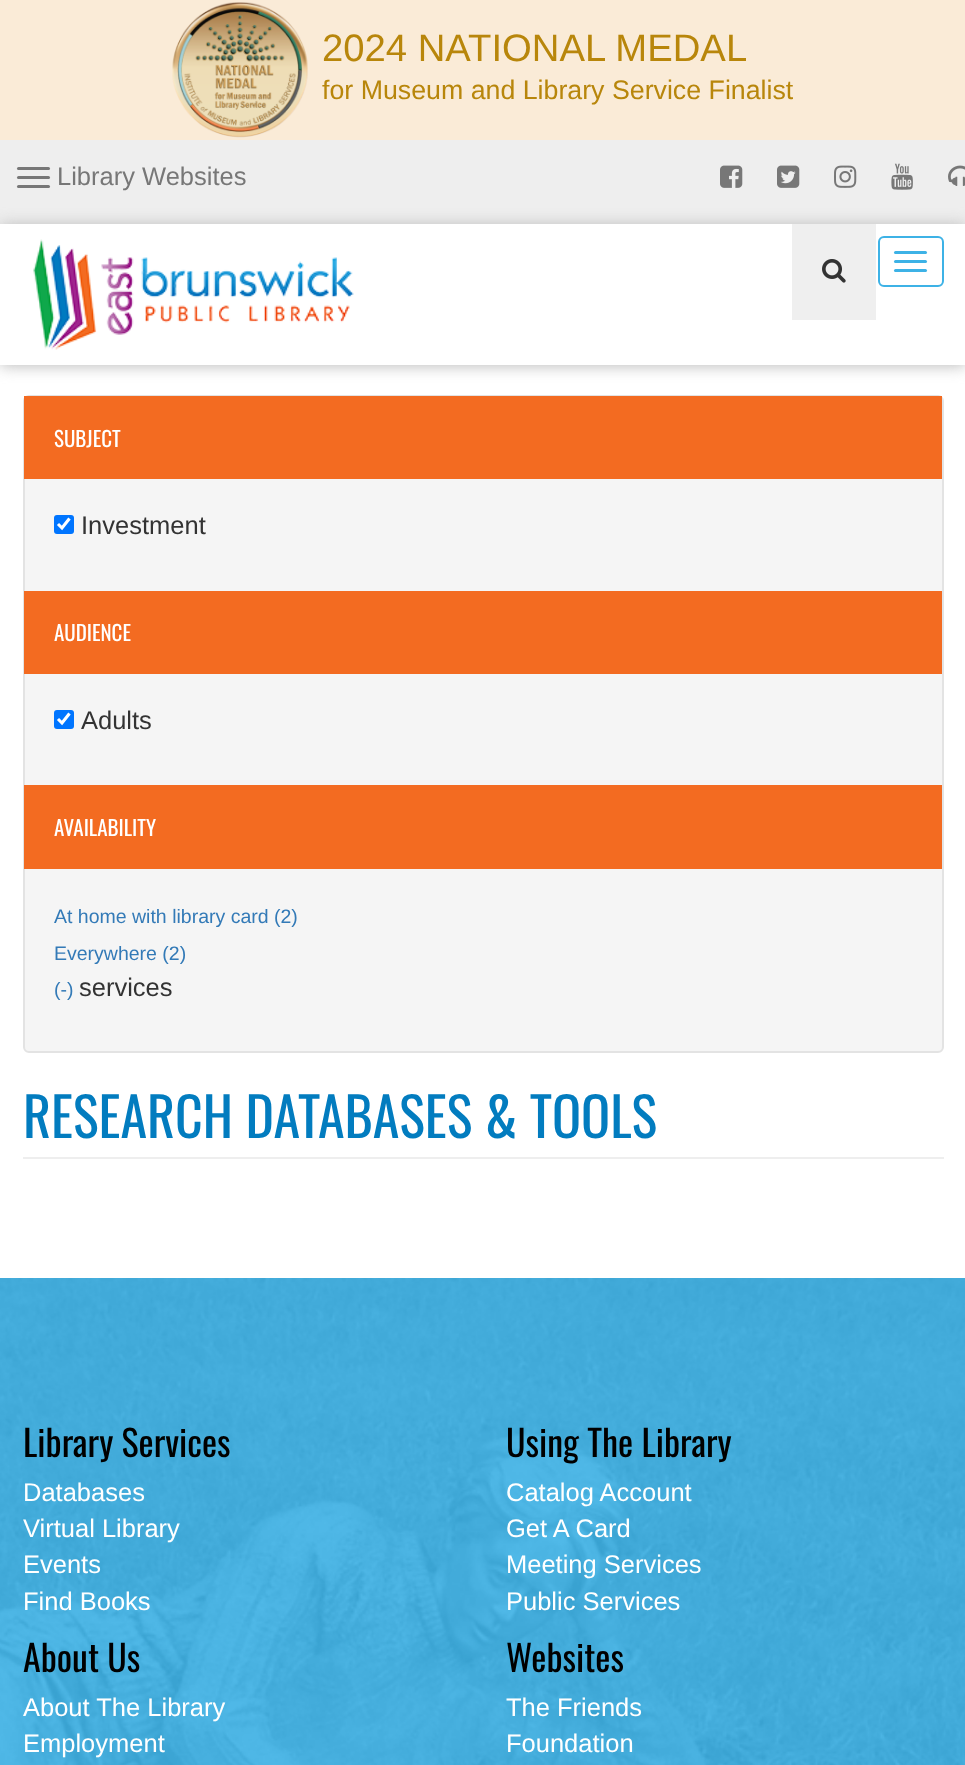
<!DOCTYPE html>
<meta charset="utf-8">
<style>body { margin: 0 } canvas { display: block }</style>
<canvas id="canvas" width="965" height="1765"></canvas>
<img id="img1" src="images/1.png" hidden>
<img id="img2" src="images/2.png" hidden>
<img id="img3" src="images/3.png" hidden>
<img id="img4" src="images/4.png" hidden>
<img id="img5" src="images/5.png" hidden>
<img id="img6" src="images/6.png" hidden>
<img id="img7" src="images/7.png" hidden>
<img id="img8" src="images/8.png" hidden>
<img id="img9" src="images/9.png" hidden>
<script>
window.onload = function () {
    const canvas = document.getElementById('canvas');
    const context = canvas.getContext('2d');
    context.miterLimit = 4;
    context.fontKerning = 'normal';

    context.fillStyle = 'rgb(255, 255, 255)';
    context.fillRect(0, 0, 965, 1765);
    context.fillStyle = 'rgb(238, 238, 238)';
    context.fillRect(0, 140, 965, 84);
    context.fillStyle = 'rgb(250, 235, 215)';
    context.fillRect(0, 0, 965, 140);
    context.drawImage(document.getElementById('img1'), 172, 2, 136, 136);
    context.fillStyle = 'rgb(119, 119, 119)';
    context.beginPath();
    context.roundRect(17, 167, 33, 3, 1.5);
    context.fill();
    context.beginPath();
    context.roundRect(17, 176, 33, 3, 1.5);
    context.fill();
    context.beginPath();
    context.roundRect(17, 185, 33, 3, 1.5);
    context.fill();
    context.drawImage(document.getElementById('img2'), 720, 165, 23, 23);
    context.drawImage(document.getElementById('img3'), 777, 165, 23, 23);
    context.drawImage(document.getElementById('img4'), 834, 165, 23, 23);
    context.drawImage(document.getElementById('img5'), 891, 163, 22, 27);
    context.drawImage(document.getElementById('img6'), 948, 165, 17, 21);
    context.save();
    context.beginPath();
    context.moveTo(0, 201);
    context.lineTo(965, 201);
    context.lineTo(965, 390);
    context.lineTo(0, 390);
    context.closePath();
    context.moveTo(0, 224);
    context.lineTo(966, 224);
    context.lineTo(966, 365);
    context.lineTo(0, 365);
    context.closePath();
    context.clip('evenodd');
    context.fillStyle = 'rgb(187, 187, 187)';
    context.filter = 'blur(7.5px)';
    context.beginPath();
    context.rect(0, 225, 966, 141);
    context.fill();
    context.filter = 'none';
    context.restore();
    context.drawImage(document.getElementById('img7'), 33, 239, 321, 111);
    context.fillStyle = 'rgb(239, 239, 239)';
    context.fillRect(792, 224, 84, 96);
    context.drawImage(document.getElementById('img8'), 822, 259, 24, 24);
    context.beginPath();
    context.roundRect(879, 237, 64, 49, 5);
    context.strokeStyle = 'rgb(61, 178, 230)';
    context.lineWidth = 2;
    context.stroke();
    context.fillStyle = 'rgb(61, 178, 230)';
    context.beginPath();
    context.roundRect(894, 251, 33, 3, 1.5);
    context.fill();
    context.beginPath();
    context.roundRect(894, 260, 33, 3, 1.5);
    context.fill();
    context.beginPath();
    context.roundRect(894, 269, 33, 3, 1.5);
    context.fill();
    context.fillStyle = 'rgb(245, 245, 245)';
    context.beginPath();
    context.roundRect(24, 396, 919, 656, 5);
    context.fill();
    context.strokeStyle = 'rgb(227, 227, 227)';
    context.stroke();
    context.fillStyle = 'rgb(243, 107, 33)';
    context.fillRect(24, 396, 918, 83);
    context.fillStyle = 'rgb(0, 117, 255)';
    context.beginPath();
    context.roundRect(54, 515, 20, 19, 3);
    context.fill();
    context.beginPath();
    context.moveTo(58, 524);
    context.lineTo(62, 528);
    context.lineTo(69.5, 518.5);
    context.strokeStyle = 'rgb(255, 255, 255)';
    context.lineWidth = 3.1;
    context.stroke();
    context.fillStyle = 'rgb(243, 107, 33)';
    context.fillRect(24, 591, 918, 83);
    context.fillStyle = 'rgb(0, 117, 255)';
    context.beginPath();
    context.roundRect(54, 710, 20, 19, 3);
    context.fill();
    context.beginPath();
    context.moveTo(58, 719);
    context.lineTo(62, 723);
    context.lineTo(69.5, 713.5);
    context.stroke();
    context.fillStyle = 'rgb(243, 107, 33)';
    context.fillRect(24, 785, 918, 84);
    context.fillStyle = 'rgb(238, 238, 238)';
    context.fillRect(23, 1157, 921, 2);
    context.fillStyle = 'rgb(61, 178, 230)';
    context.fillRect(0, 1278, 965, 487);
    context.drawImage(document.getElementById('img9'), 0, 1278, 965, 487);
    context.font = '38.25px Liberation Sans';
    context.fillStyle = 'rgb(184, 134, 11)';
    context.fillText('2024 NATIONAL MEDAL', 322, 61);
    context.font = '26.75px Liberation Sans';
    context.fillText('for Museum and Library Service Finalist', 322, 99);
    context.font = '25.5px Liberation Sans';
    context.fillStyle = 'rgb(119, 119, 119)';
    context.fillText('Library Websites', 57, 185);
    context.font = '21px Oswald';
    context.fillStyle = 'rgb(255, 255, 255)';
    context.fillText('SUBJECT', 54, 447);
    context.font = '25.5px Liberation Sans';
    context.fillStyle = 'rgb(51, 51, 51)';
    context.fillText('Investment', 81, 534);
    context.font = '21px Oswald';
    context.fillStyle = 'rgb(255, 255, 255)';
    context.fillText('AUDIENCE', 54, 641);
    context.font = '25.5px Liberation Sans';
    context.fillStyle = 'rgb(51, 51, 51)';
    context.fillText('Adults', 81, 729);
    context.font = '21px Oswald';
    context.fillStyle = 'rgb(255, 255, 255)';
    context.fillText('AVAILABILITY', 54, 836);
    context.font = '19.5px Liberation Sans';
    context.fillStyle = 'rgb(51, 122, 183)';
    context.fillText('At home with library card (2)', 54, 923);
    context.fillText('Everywhere (2)', 54, 960);
    context.fillText('(-)', 54, 996);
    context.font = '25.5px Liberation Sans';
    context.fillStyle = 'rgb(51, 51, 51)';
    context.fillText('services', 79, 996);
    context.font = '54px Oswald';
    context.fillStyle = 'rgb(2, 124, 191)';
    context.fillText('RESEARCH DATABASES & TOOLS', 23, 1138);
    context.font = '36px Oswald';
    context.fillStyle = 'rgb(0, 0, 0)';
    context.fillText('Library Services', 23, 1457);
    context.font = '25.5px Liberation Sans';
    context.fillStyle = 'rgb(255, 255, 255)';
    context.fillText('Databases', 23, 1501);
    context.fillText('Virtual Library', 23, 1537);
    context.fillText('Events', 23, 1573);
    context.fillText('Find Books', 23, 1610);
    context.font = '36px Oswald';
    context.fillStyle = 'rgb(0, 0, 0)';
    context.fillText('Using The Library', 506, 1457);
    context.font = '25.5px Liberation Sans';
    context.fillStyle = 'rgb(255, 255, 255)';
    context.fillText('Catalog Account', 506, 1501);
    context.fillText('Get A Card', 506, 1537);
    context.fillText('Meeting Services', 506, 1573);
    context.fillText('Public Services', 506, 1610);
    context.font = '36px Oswald';
    context.fillStyle = 'rgb(0, 0, 0)';
    context.fillText('About Us', 23, 1672);
    context.font = '25.5px Liberation Sans';
    context.fillStyle = 'rgb(255, 255, 255)';
    context.fillText('About The Library', 23, 1716);
    context.fillText('Employment', 23, 1752);
    context.font = '36px Oswald';
    context.fillStyle = 'rgb(0, 0, 0)';
    context.fillText('Websites', 506, 1672);
    context.font = '25.5px Liberation Sans';
    context.fillStyle = 'rgb(255, 255, 255)';
    context.fillText('The Friends', 506, 1716);
    context.fillText('Foundation', 506, 1752);
};
</script>
